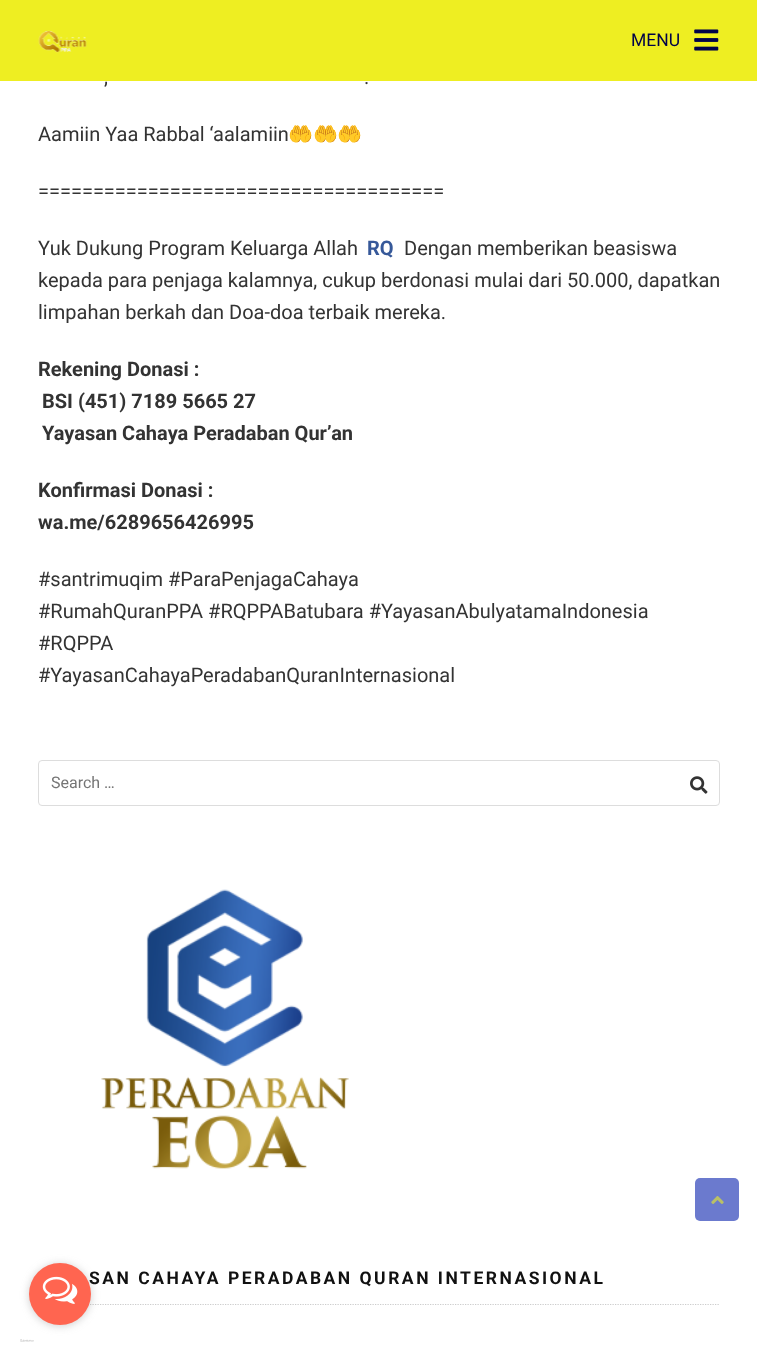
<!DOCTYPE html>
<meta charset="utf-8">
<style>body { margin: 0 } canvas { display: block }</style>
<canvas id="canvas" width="757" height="1364"></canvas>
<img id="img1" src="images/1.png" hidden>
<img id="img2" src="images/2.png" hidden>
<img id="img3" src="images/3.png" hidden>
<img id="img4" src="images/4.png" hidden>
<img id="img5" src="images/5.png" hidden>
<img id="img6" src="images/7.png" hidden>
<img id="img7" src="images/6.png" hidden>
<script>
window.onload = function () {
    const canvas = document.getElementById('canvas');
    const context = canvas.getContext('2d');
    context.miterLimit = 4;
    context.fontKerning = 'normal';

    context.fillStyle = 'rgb(255, 255, 255)';
    context.fillRect(0, 0, 757, 1364);
    context.fillStyle = 'rgb(238, 238, 34)';
    context.fillRect(0, 0, 757, 81);
    context.drawImage(document.getElementById('img1'), 38, 30, 49, 23);
    context.drawImage(document.getElementById('img2'), 694, 29, 25, 22);
    context.beginPath();
    context.roundRect(38.5, 760.5, 681, 45, 3.5);
    context.strokeStyle = 'rgb(221, 221, 221)';
    context.stroke();
    context.drawImage(document.getElementById('img3'), 690, 776, 18, 18);
    context.drawImage(document.getElementById('img4'), 101, 889, 248, 280);
    context.beginPath();
    context.moveTo(37.5, 1304.5);
    context.lineTo(720, 1304.5);
    context.strokeStyle = 'rgb(204, 204, 204)';
    context.lineWidth = 1.2;
    context.setLineDash([1.25, 1.25]);
    context.stroke();
    context.fillStyle = 'rgb(107, 122, 206)';
    context.beginPath();
    context.roundRect(695, 1178, 44, 43, 5);
    context.fill();
    context.drawImage(document.getElementById('img5'), 711, 1196, 13, 8);
    context.drawImage(document.getElementById('img6'), 20, 1339, 14, 3);
    context.fillStyle = 'rgba(136, 136, 136, 0.4)';
    context.filter = 'blur(4.5px)';
    context.beginPath();
    context.roundRect(29, 1264, 62, 62, 31);
    context.fill();
    context.filter = 'none';
    context.font = '17.5px Roboto';
    context.fillStyle = 'rgb(0, 2, 73)';
    context.fillText('MENU', 631, 46);
    context.font = '20px Roboto';
    context.fillStyle = 'rgb(51, 51, 51)';
    context.fillText(',', 104, 84);
    context.fillText('.', 364, 84);
    context.fillText('Aamiin Yaa Rabbal ‘aalamiin', 38, 141);
    context.font = '20px Noto Color Emoji';
    context.fillText('🤲🤲🤲', 288, 141);
    context.font = '20px Roboto';
    context.fillText('=====================================', 38, 198);
    context.fillText('Yuk Dukung Program Keluarga Allah', 38, 255);
    context.font = 'bold 20px Roboto';
    context.fillStyle = 'rgb(54, 88, 153)';
    context.fillText('RQ', 367, 255);
    context.font = '20px Roboto';
    context.fillStyle = 'rgb(51, 51, 51)';
    context.fillText('Dengan memberikan beasiswa', 404, 255);
    context.fillText('kepada para penjaga kalamnya, cukup berdonasi mulai dari 50.000, dapatkan', 38, 287);
    context.fillText('limpahan berkah dan Doa-doa terbaik mereka.', 38, 319);
    context.font = 'bold 20px Roboto';
    context.fillText('Rekening Donasi :', 38, 376);
    context.fillText('BSI (451) 7189 5665 27', 42, 408);
    context.fillText('Yayasan Cahaya Peradaban Qur’an', 42, 440);
    context.fillText('Konfirmasi Donasi :', 38, 497);
    context.fillText('wa.me/6289656426995', 38, 529);
    context.font = '20px Roboto';
    context.fillText('#santrimuqim #ParaPenjagaCahaya', 38, 586);
    context.fillText('#RumahQuranPPA #RQPPABatubara #YayasanAbulyatamaIndonesia', 38, 618);
    context.fillText('#RQPPA', 38, 650);
    context.fillText('#YayasanCahayaPeradabanQuranInternasional', 38, 682);
    context.font = '16px Roboto';
    context.fillStyle = 'rgb(117, 117, 117)';
    context.fillText('Search …', 51, 788);
    context.letterSpacing = '2.5px';
    context.font = 'bold 17.5px Roboto';
    context.fillStyle = 'rgb(17, 17, 17)';
    context.fillText('SAN CAHAYA PERADABAN QURAN INTERNASIONAL', 89, 1284);
    context.fillStyle = 'rgb(255, 101, 80)';
    context.beginPath();
    context.arc(60, 1294, 31, 0, 2 * Math.PI);
    context.fill();
    context.drawImage(document.getElementById('img7'), 42, 1276, 36, 28);
};
</script>
